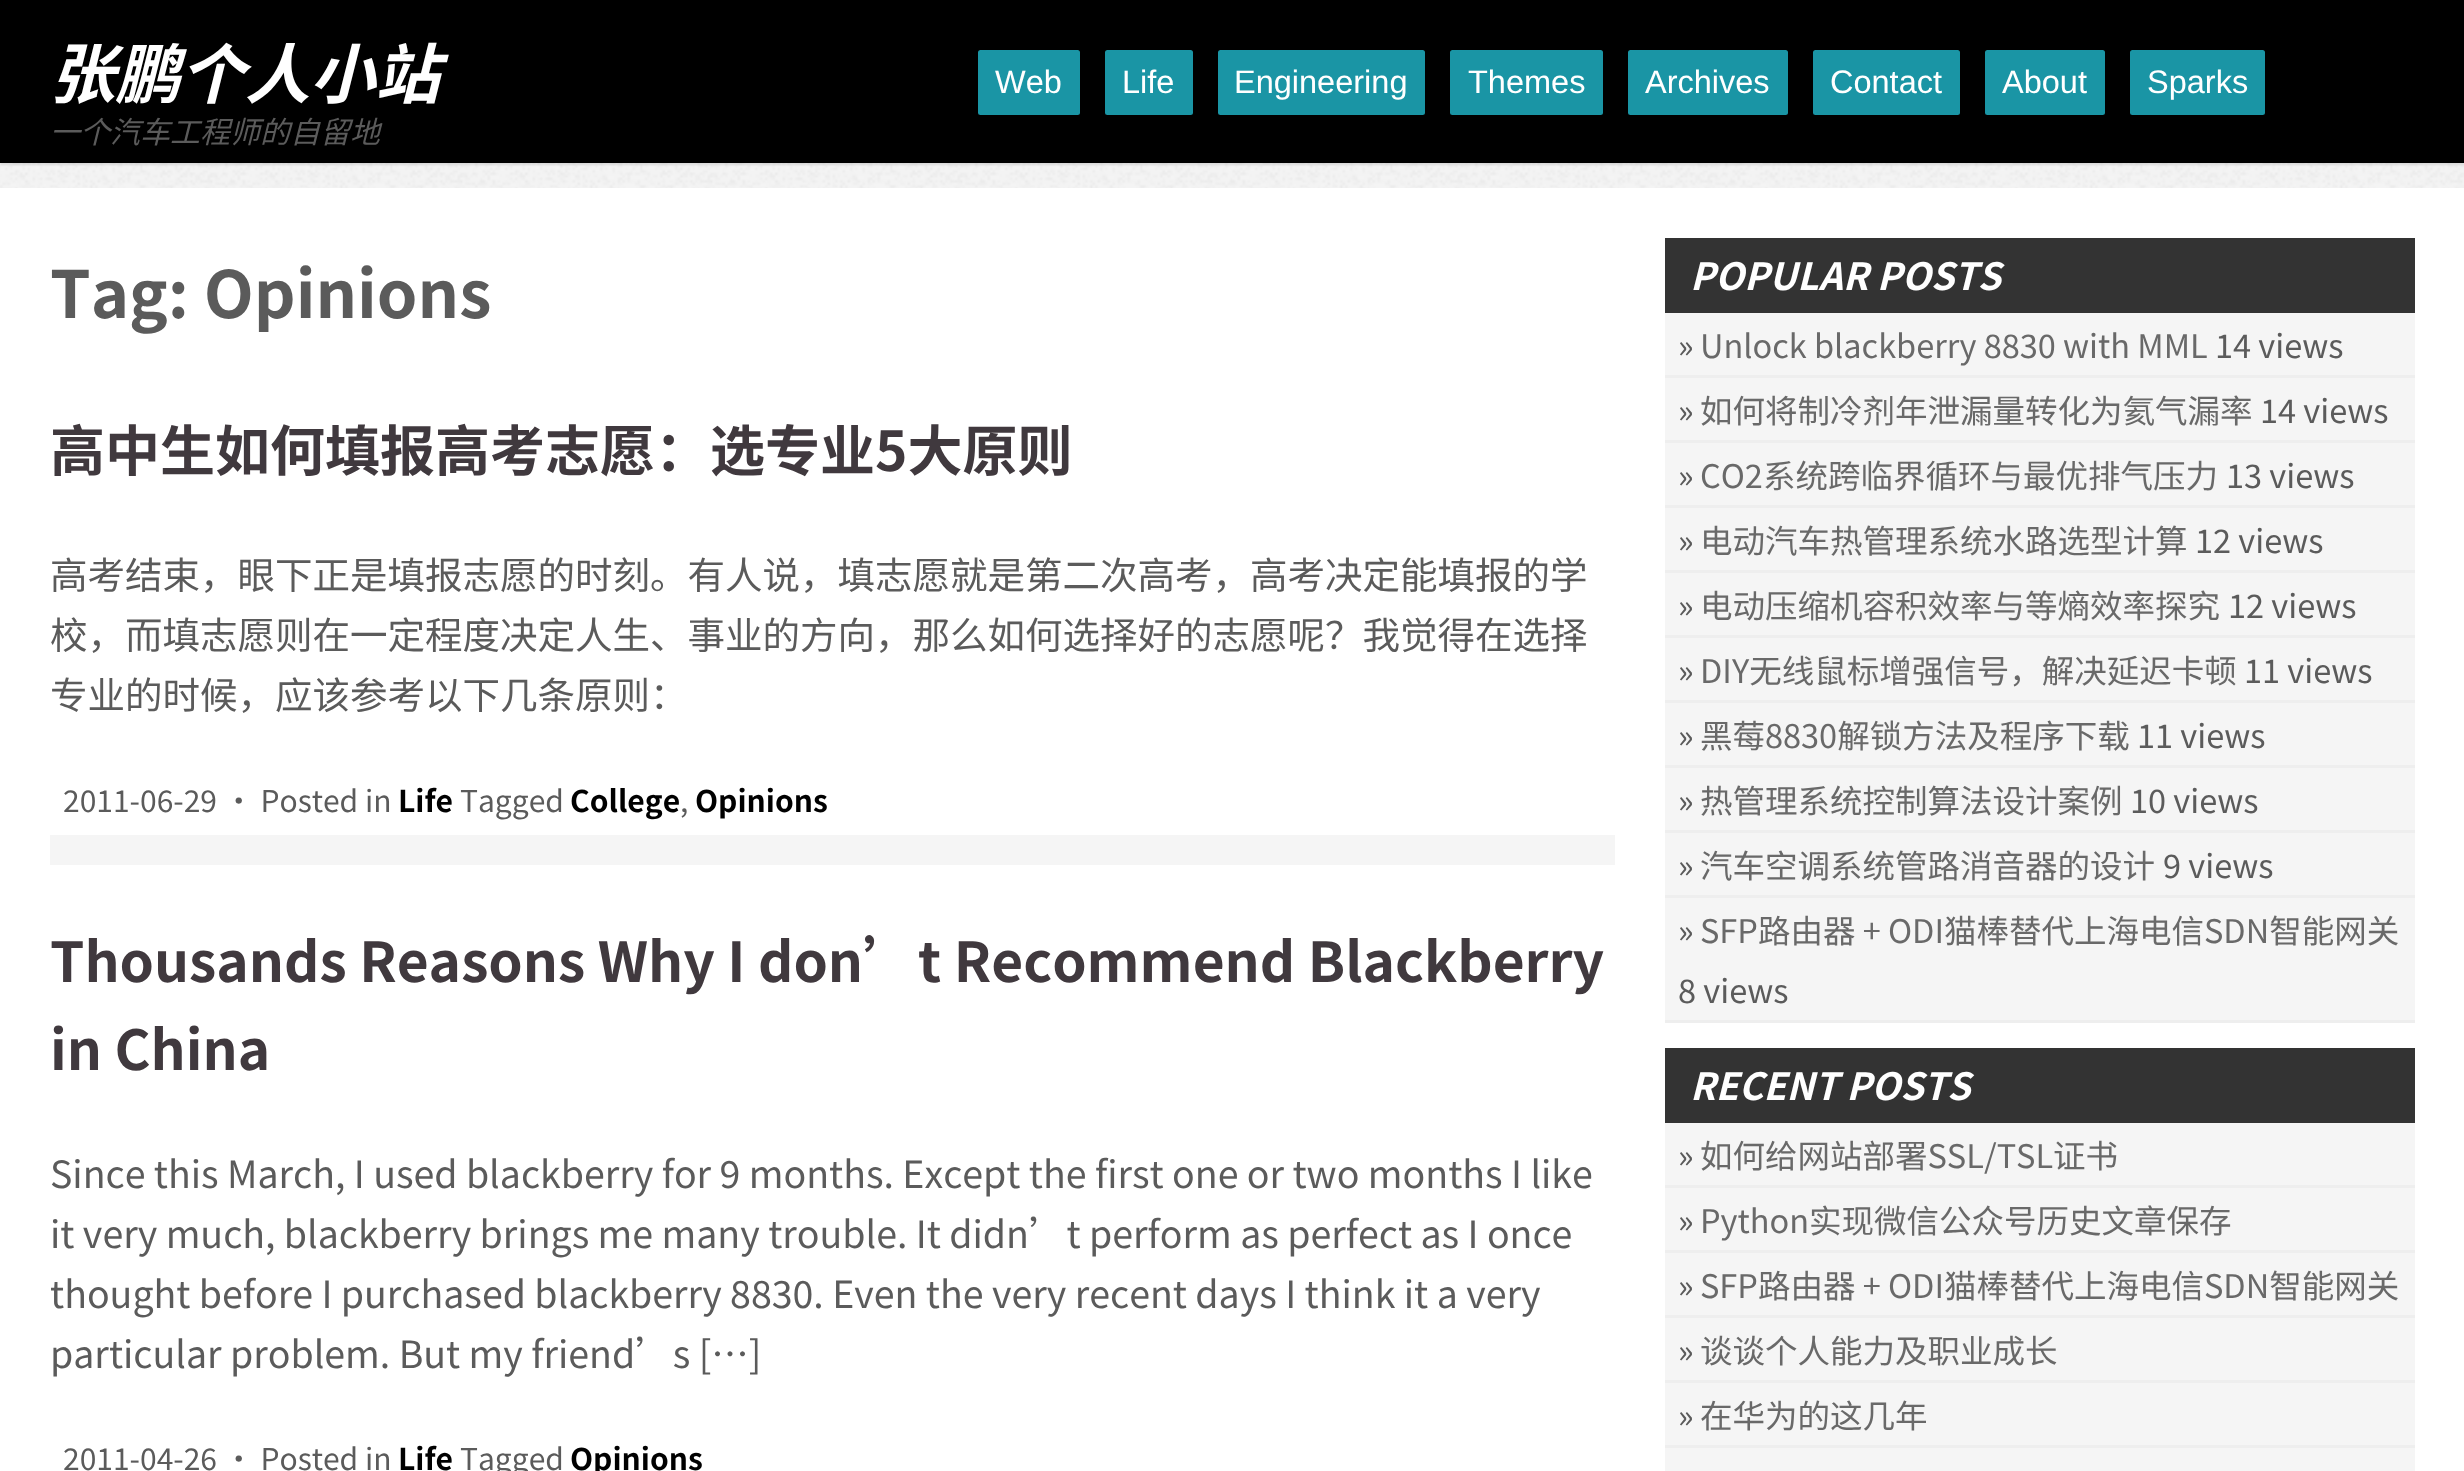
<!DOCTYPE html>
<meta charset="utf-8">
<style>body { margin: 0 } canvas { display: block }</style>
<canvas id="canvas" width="2464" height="1471"></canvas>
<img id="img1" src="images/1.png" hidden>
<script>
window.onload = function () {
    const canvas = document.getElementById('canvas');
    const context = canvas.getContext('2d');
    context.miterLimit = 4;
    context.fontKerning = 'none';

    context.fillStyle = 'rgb(255, 255, 255)';
    context.fillRect(0, 0, 2464, 1471);
    context.drawImage(document.getElementById('img1'), 0, 163, 2464, 25);
    context.fillStyle = 'rgba(0, 0, 0, 0.1)';
    context.filter = 'blur(1px)';
    context.beginPath();
    context.rect(0, 3, 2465, 162);
    context.fill();
    context.filter = 'none';
    context.fillStyle = 'rgb(0, 0, 0)';
    context.fillRect(0, 0, 2464, 163);
    context.fillStyle = 'rgb(26, 149, 165)';
    context.beginPath();
    context.roundRect(978, 50, 102, 65, 2.5);
    context.fill();
    context.beginPath();
    context.roundRect(1105, 50, 88, 65, 2.5);
    context.fill();
    context.beginPath();
    context.roundRect(1218, 50, 207, 65, 2.5);
    context.fill();
    context.beginPath();
    context.roundRect(1450, 50, 153, 65, 2.5);
    context.fill();
    context.beginPath();
    context.roundRect(1628, 50, 160, 65, 2.5);
    context.fill();
    context.beginPath();
    context.roundRect(1813, 50, 147, 65, 2.5);
    context.fill();
    context.beginPath();
    context.roundRect(1985, 50, 120, 65, 2.5);
    context.fill();
    context.beginPath();
    context.roundRect(2130, 50, 135, 65, 2.5);
    context.fill();
    context.fillStyle = 'rgb(245, 245, 245)';
    context.fillRect(50, 835, 1565, 30);
    context.fillRect(1665, 313, 750, 707);
    context.fillStyle = 'rgb(51, 51, 51)';
    context.fillRect(1665, 238, 750, 75);
    context.fillStyle = 'rgb(238, 238, 238)';
    context.fillRect(1665, 375, 750, 3);
    context.fillRect(1665, 440, 750, 3);
    context.fillRect(1665, 505, 750, 3);
    context.fillRect(1665, 570, 750, 3);
    context.fillRect(1665, 635, 750, 3);
    context.fillRect(1665, 700, 750, 3);
    context.fillRect(1665, 765, 750, 3);
    context.fillRect(1665, 830, 750, 3);
    context.fillRect(1665, 895, 750, 3);
    context.fillRect(1665, 1020, 750, 3);
    context.fillStyle = 'rgb(245, 245, 245)';
    context.fillRect(1665, 1123, 750, 348);
    context.fillStyle = 'rgb(51, 51, 51)';
    context.fillRect(1665, 1048, 750, 75);
    context.fillStyle = 'rgb(238, 238, 238)';
    context.fillRect(1665, 1185, 750, 3);
    context.fillRect(1665, 1250, 750, 3);
    context.fillRect(1665, 1315, 750, 3);
    context.fillRect(1665, 1380, 750, 3);
    context.fillRect(1665, 1445, 750, 3);
    context.font = 'italic bold 65px Noto Sans CJK SC';
    context.fillStyle = 'rgb(255, 255, 255)';
    context.fillText('张鹏个人小站', 50, 98);
    context.font = 'italic 30px Noto Sans CJK SC';
    context.fillStyle = 'rgb(91, 91, 91)';
    context.fillText('一个汽车工程师的自留地', 50, 143);
    context.font = '32.5px Liberation Sans';
    context.fillStyle = 'rgb(255, 255, 255)';
    context.fillText('Web', 995, 93);
    context.fillText('Life', 1122, 93);
    context.fillText('Engineering', 1234, 93);
    context.fillText('Themes', 1468, 93);
    context.fillText('Archives', 1645, 93);
    context.fillText('Contact', 1830, 93);
    context.fillText('About', 2002, 93);
    context.fillText('Sparks', 2147, 93);
    context.font = 'bold 65px Noto Sans CJK SC';
    context.fillStyle = 'rgb(91, 91, 91)';
    context.fillText('Tag: Opinions', 50, 318);
    context.font = 'bold 55px Noto Sans CJK SC';
    context.fillStyle = 'rgb(64, 57, 62)';
    context.fillText('高中生如何填报高考志愿：选专业5大原则', 50, 471);
    context.font = '37.5px Noto Sans CJK SC';
    context.fillStyle = 'rgb(91, 91, 91)';
    context.fillText('高考结束，眼下正是填报志愿的时刻。有人说，填志愿就是第二次高考，高考决定能填报的学', 50, 589);
    context.fillText('校，而填志愿则在一定程度决定人生、事业的方向，那么如何选择好的志愿呢？我觉得在选择', 50, 649);
    context.fillText('专业的时候，应该参考以下几条原则：', 50, 709);
    context.font = '30px Noto Sans CJK SC';
    context.fillText('2011-06-29 · Posted in', 63, 812);
    context.font = 'bold 30px Noto Sans CJK SC';
    context.fillStyle = 'rgb(0, 0, 0)';
    context.fillText('Life', 398, 812);
    context.font = '30px Noto Sans CJK SC';
    context.fillStyle = 'rgb(91, 91, 91)';
    context.fillText('Tagged', 460, 812);
    context.font = 'bold 30px Noto Sans CJK SC';
    context.fillStyle = 'rgb(0, 0, 0)';
    context.fillText('College', 570, 812);
    context.font = '30px Noto Sans CJK SC';
    context.fillStyle = 'rgb(91, 91, 91)';
    context.fillText(',', 680, 812);
    context.font = 'bold 30px Noto Sans CJK SC';
    context.fillStyle = 'rgb(0, 0, 0)';
    context.fillText('Opinions', 695, 812);
    context.font = 'bold 55px Noto Sans CJK SC';
    context.fillStyle = 'rgb(64, 57, 62)';
    context.fillText('Thousands Reasons Why I don’t Recommend Blackberry', 50, 982);
    context.fillText('in China', 50, 1070);
    context.font = '37.5px Noto Sans CJK SC';
    context.fillStyle = 'rgb(91, 91, 91)';
    context.fillText('Since this March, I used blackberry for 9 months. Except the first one or two months I like', 50, 1188);
    context.fillText('it very much, blackberry brings me many trouble. It didn’t perform as perfect as I once', 50, 1248);
    context.fillText('thought before I purchased blackberry 8830. Even the very recent days I think it a very', 50, 1308);
    context.fillText('particular problem. But my friend’s […]', 50, 1368);
    context.font = '30px Noto Sans CJK SC';
    context.fillText('2011-04-26 · Posted in', 63, 1470);
    context.font = 'bold 30px Noto Sans CJK SC';
    context.fillStyle = 'rgb(0, 0, 0)';
    context.fillText('Life', 398, 1470);
    context.font = '30px Noto Sans CJK SC';
    context.fillStyle = 'rgb(91, 91, 91)';
    context.fillText('Tagged', 460, 1470);
    context.font = 'bold 30px Noto Sans CJK SC';
    context.fillStyle = 'rgb(0, 0, 0)';
    context.fillText('Opinions', 570, 1470);
    context.font = 'italic bold 37.5px Noto Sans CJK SC';
    context.fillStyle = 'rgb(255, 255, 255)';
    context.fillText('POPULAR POSTS', 1690, 290);
    context.font = '32.5px Noto Sans CJK SC';
    context.fillStyle = 'rgb(91, 91, 91)';
    context.fillText('»', 1678, 358);
    context.fillStyle = 'rgb(105, 105, 105)';
    context.fillText('Unlock blackberry 8830 with MML', 1700, 358);
    context.fillStyle = 'rgb(91, 91, 91)';
    context.fillText('14 views', 2215, 358);
    context.fillText('»', 1678, 423);
    context.fillStyle = 'rgb(105, 105, 105)';
    context.fillText('如何将制冷剂年泄漏量转化为氦气漏率', 1700, 423);
    context.fillStyle = 'rgb(91, 91, 91)';
    context.fillText('14 views', 2260, 423);
    context.fillText('»', 1678, 488);
    context.fillStyle = 'rgb(105, 105, 105)';
    context.fillText('CO2系统跨临界循环与最优排气压力', 1700, 488);
    context.fillStyle = 'rgb(91, 91, 91)';
    context.fillText('13 views', 2226, 488);
    context.fillText('»', 1678, 553);
    context.fillStyle = 'rgb(105, 105, 105)';
    context.fillText('电动汽车热管理系统水路选型计算', 1700, 553);
    context.fillStyle = 'rgb(91, 91, 91)';
    context.fillText('12 views', 2195, 553);
    context.fillText('»', 1678, 618);
    context.fillStyle = 'rgb(105, 105, 105)';
    context.fillText('电动压缩机容积效率与等熵效率探究', 1700, 618);
    context.fillStyle = 'rgb(91, 91, 91)';
    context.fillText('12 views', 2228, 618);
    context.fillText('»', 1678, 683);
    context.fillStyle = 'rgb(105, 105, 105)';
    context.fillText('DIY无线鼠标增强信号，解决延迟卡顿', 1700, 683);
    context.fillStyle = 'rgb(91, 91, 91)';
    context.fillText('11 views', 2244, 683);
    context.fillText('»', 1678, 748);
    context.fillStyle = 'rgb(105, 105, 105)';
    context.fillText('黑莓8830解锁方法及程序下载', 1700, 748);
    context.fillStyle = 'rgb(91, 91, 91)';
    context.fillText('11 views', 2137, 748);
    context.fillText('»', 1678, 813);
    context.fillStyle = 'rgb(105, 105, 105)';
    context.fillText('热管理系统控制算法设计案例', 1700, 813);
    context.fillStyle = 'rgb(91, 91, 91)';
    context.fillText('10 views', 2130, 813);
    context.fillText('»', 1678, 878);
    context.fillStyle = 'rgb(105, 105, 105)';
    context.fillText('汽车空调系统管路消音器的设计', 1700, 878);
    context.fillStyle = 'rgb(91, 91, 91)';
    context.fillText('9 views', 2163, 878);
    context.fillText('»', 1678, 943);
    context.fillStyle = 'rgb(105, 105, 105)';
    context.fillText('SFP路由器 + ODI猫棒替代上海电信SDN智能网关', 1700, 943);
    context.fillStyle = 'rgb(91, 91, 91)';
    context.fillText('8 views', 1678, 1003);
    context.font = 'italic bold 37.5px Noto Sans CJK SC';
    context.fillStyle = 'rgb(255, 255, 255)';
    context.fillText('RECENT POSTS', 1690, 1100);
    context.font = '32.5px Noto Sans CJK SC';
    context.fillStyle = 'rgb(91, 91, 91)';
    context.fillText('»', 1678, 1168);
    context.fillStyle = 'rgb(105, 105, 105)';
    context.fillText('如何给网站部署SSL/TSL证书', 1700, 1168);
    context.fillStyle = 'rgb(91, 91, 91)';
    context.fillText('»', 1678, 1233);
    context.fillStyle = 'rgb(105, 105, 105)';
    context.fillText('Python实现微信公众号历史文章保存', 1700, 1233);
    context.fillStyle = 'rgb(91, 91, 91)';
    context.fillText('»', 1678, 1298);
    context.fillStyle = 'rgb(105, 105, 105)';
    context.fillText('SFP路由器 + ODI猫棒替代上海电信SDN智能网关', 1700, 1298);
    context.fillStyle = 'rgb(91, 91, 91)';
    context.fillText('»', 1678, 1363);
    context.fillStyle = 'rgb(105, 105, 105)';
    context.fillText('谈谈个人能力及职业成长', 1700, 1363);
    context.fillStyle = 'rgb(91, 91, 91)';
    context.fillText('»', 1678, 1428);
    context.fillStyle = 'rgb(105, 105, 105)';
    context.fillText('在华为的这几年', 1700, 1428);
};
</script>
